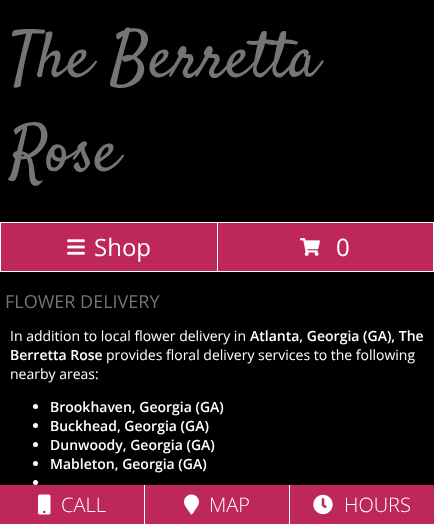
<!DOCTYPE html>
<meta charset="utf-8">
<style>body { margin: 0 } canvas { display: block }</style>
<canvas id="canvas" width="434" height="524"></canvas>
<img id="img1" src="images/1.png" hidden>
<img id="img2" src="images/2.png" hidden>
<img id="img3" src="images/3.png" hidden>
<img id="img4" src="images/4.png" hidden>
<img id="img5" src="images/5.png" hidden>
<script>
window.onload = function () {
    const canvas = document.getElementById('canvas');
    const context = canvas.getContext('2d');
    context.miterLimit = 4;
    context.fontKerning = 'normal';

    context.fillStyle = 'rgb(0, 0, 0)';
    context.fillRect(0, 0, 434, 524);
    context.strokeStyle = 'rgb(255, 255, 255)';
    context.strokeRect(0.5, 222.5, 433, 49);
    context.fillStyle = 'rgb(255, 255, 255)';
    context.fillRect(217, 223, 1, 48);
    context.fillStyle = 'rgb(190, 39, 90)';
    context.fillRect(1, 223, 216, 48);
    context.drawImage(document.getElementById('img1'), 67, 239, 18, 16);
    context.fillRect(218, 223, 215, 48);
    context.drawImage(document.getElementById('img2'), 300, 238, 20, 18);
    context.fillStyle = 'rgb(255, 255, 255)';
    context.beginPath();
    context.arc(35.5, 406.5, 2.5, 0, 2 * Math.PI);
    context.fill();
    context.beginPath();
    context.arc(35.5, 425.5, 2.5, 0, 2 * Math.PI);
    context.fill();
    context.beginPath();
    context.arc(35.5, 444.5, 2.5, 0, 2 * Math.PI);
    context.fill();
    context.beginPath();
    context.arc(35.5, 463.5, 2.5, 0, 2 * Math.PI);
    context.fill();
    context.beginPath();
    context.arc(35.5, 482.5, 2.5, 0, 2 * Math.PI);
    context.fill();
    context.fillStyle = 'rgb(190, 39, 90)';
    context.fillRect(0, 485, 144, 39);
    context.drawImage(document.getElementById('img3'), 38, 494, 13, 21);
    context.fillRect(145, 485, 144, 39);
    context.fillStyle = 'rgb(255, 255, 255)';
    context.fillRect(144, 485, 1, 39);
    context.drawImage(document.getElementById('img4'), 184, 494, 15, 21);
    context.fillStyle = 'rgb(190, 39, 90)';
    context.fillRect(290, 485, 144, 39);
    context.fillStyle = 'rgb(255, 255, 255)';
    context.fillRect(289, 485, 1, 39);
    context.drawImage(document.getElementById('img5'), 313, 494, 20, 21);
    context.font = '65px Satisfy';
    context.fillStyle = 'rgb(117, 117, 117)';
    context.fillText('The Berretta', 10, 76);
    context.fillText('Rose', 10, 170);
    context.font = '24px Open Sans';
    context.fillStyle = 'rgb(255, 255, 255)';
    context.fillText('Shop', 94, 256);
    context.fillText('0', 336, 256);
    context.font = '18px Open Sans';
    context.fillStyle = 'rgb(117, 117, 117)';
    context.fillText('FLOWER DELIVERY', 5, 308);
    context.font = '14px Open Sans';
    context.fillStyle = 'rgb(255, 255, 255)';
    context.fillText('In addition to local flower delivery in', 10, 341);
    context.font = '600 14px Open Sans';
    context.fillText('Atlanta, Georgia (GA), The', 250, 341);
    context.fillText('Berretta Rose', 10, 360);
    context.font = '14px Open Sans';
    context.fillText('provides floral delivery services to the following', 106, 360);
    context.fillText('nearby areas:', 10, 379);
    context.font = '600 14px Open Sans';
    context.fillText('Brookhaven, Georgia (GA)', 50, 412);
    context.fillText('Buckhead, Georgia (GA)', 50, 431);
    context.fillText('Dunwoody, Georgia (GA)', 50, 450);
    context.fillText('Mableton, Georgia (GA)', 50, 469);
    context.font = '300 20px Open Sans';
    context.fillText('CALL', 61, 512);
    context.fillText('MAP', 209, 512);
    context.fillText('HOURS', 344, 512);
};
</script>
